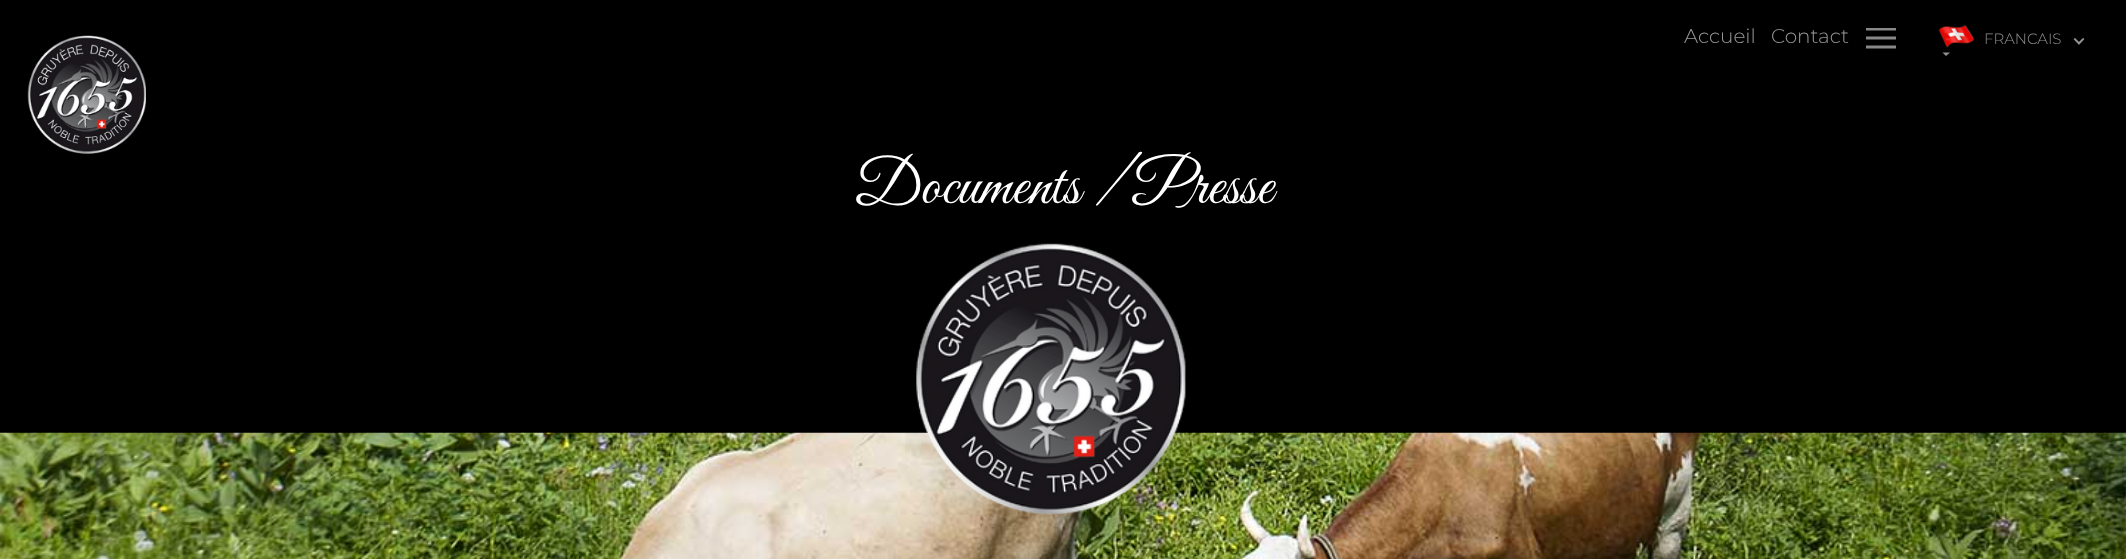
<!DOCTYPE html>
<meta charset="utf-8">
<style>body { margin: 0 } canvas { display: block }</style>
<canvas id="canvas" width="2126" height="559"></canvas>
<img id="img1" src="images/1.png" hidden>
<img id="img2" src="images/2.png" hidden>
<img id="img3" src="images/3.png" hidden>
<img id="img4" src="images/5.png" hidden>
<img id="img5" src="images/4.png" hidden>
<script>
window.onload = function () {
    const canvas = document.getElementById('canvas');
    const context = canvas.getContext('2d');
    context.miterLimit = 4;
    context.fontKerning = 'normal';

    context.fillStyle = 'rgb(0, 0, 0)';
    context.fillRect(0, 0, 2126, 559);
    context.drawImage(document.getElementById('img1'), 27, 35, 119, 119);
    context.save();
    context.beginPath();
    context.rect(1866, 28, 30, 21);
    context.clip();
    context.beginPath();
    context.moveTo(1866, 29);
    context.lineTo(1896, 29);
    context.strokeStyle = 'rgb(136, 136, 136)';
    context.lineWidth = 3;
    context.stroke();
    context.restore();
    context.beginPath();
    context.moveTo(1866, 38);
    context.lineTo(1896, 38);
    context.moveTo(1866, 47);
    context.lineTo(1896, 47);
    context.strokeStyle = 'rgb(136, 136, 136)';
    context.lineWidth = 3;
    context.stroke();
    context.drawImage(document.getElementById('img2'), 1938, 25, 36, 23);
    context.drawImage(document.getElementById('img3'), 2073, 38, 12, 7);
    context.fillStyle = 'rgb(145, 145, 145)';
    context.beginPath();
    context.moveTo(1942.5, 52.5);
    context.lineTo(1950, 52.5);
    context.lineTo(1946, 56);
    context.closePath();
    context.fill();
    context.drawImage(document.getElementById('img4'), 0, 432, 2126, 127);
    context.drawImage(document.getElementById('img5'), 905, 243, 316, 309);
    context.font = '300 20px Montserrat';
    context.fillStyle = 'rgb(153, 153, 153)';
    context.fillText('Accueil', 1684, 43);
    context.fillText('Contact', 1771, 43);
    context.font = '300 15px Montserrat';
    context.fillStyle = 'rgb(145, 145, 145)';
    context.fillText('FRANCAIS', 1984, 44);
    context.font = '62.5px Great Vibes';
    context.fillStyle = 'rgb(255, 255, 255)';
    context.fillText('Documents / Presse', 854, 203);
};
</script>
